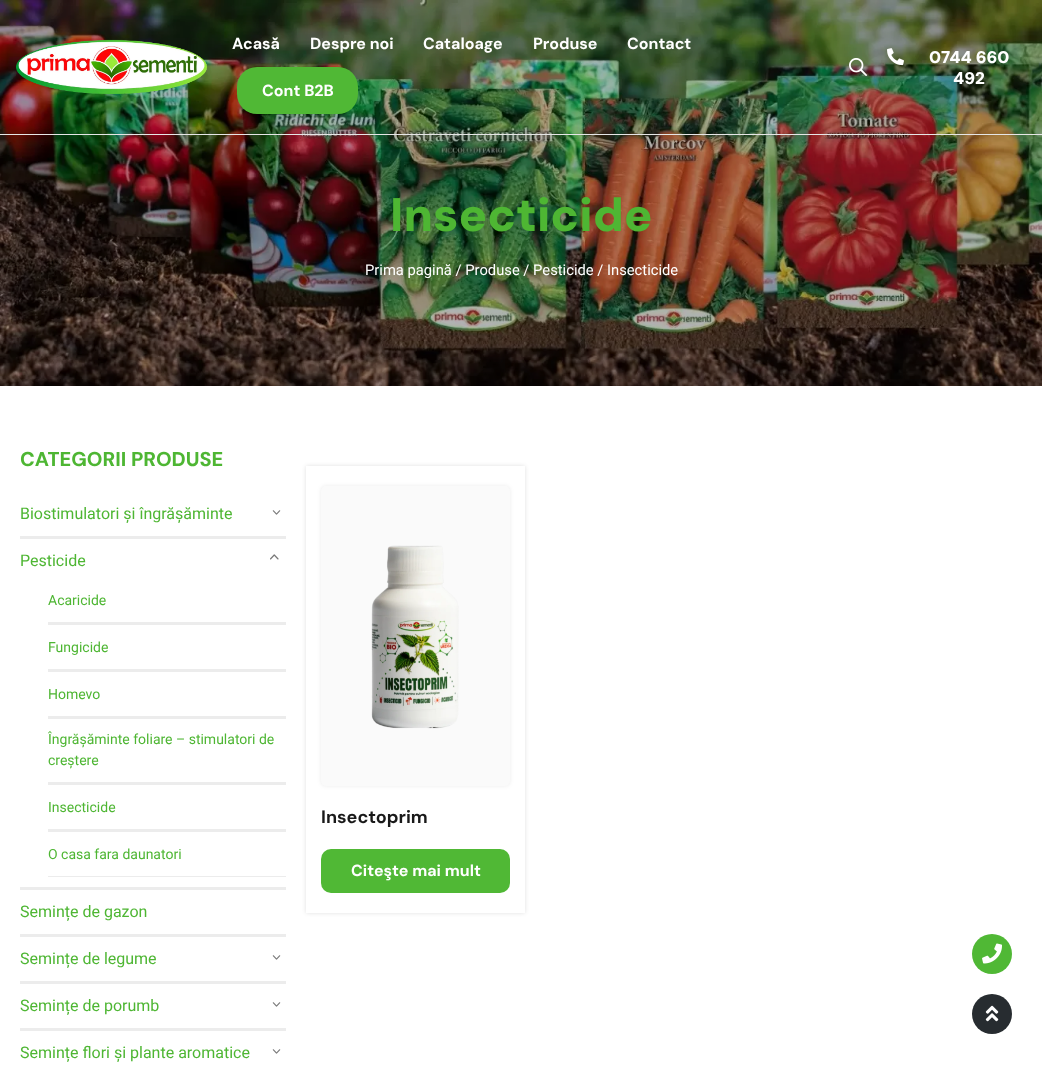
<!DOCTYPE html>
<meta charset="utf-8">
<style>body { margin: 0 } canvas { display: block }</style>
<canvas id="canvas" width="1042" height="1066"></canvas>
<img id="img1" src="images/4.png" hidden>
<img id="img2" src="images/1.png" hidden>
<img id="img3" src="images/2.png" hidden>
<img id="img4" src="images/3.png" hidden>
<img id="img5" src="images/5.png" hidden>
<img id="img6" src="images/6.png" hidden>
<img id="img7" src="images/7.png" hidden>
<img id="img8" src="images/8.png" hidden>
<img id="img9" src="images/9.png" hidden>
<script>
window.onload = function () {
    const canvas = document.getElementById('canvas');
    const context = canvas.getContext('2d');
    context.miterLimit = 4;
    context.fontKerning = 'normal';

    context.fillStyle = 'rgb(255, 255, 255)';
    context.fillRect(0, 0, 1042, 1066);
    context.drawImage(document.getElementById('img1'), 0, 0, 1042, 386);
    context.fillStyle = 'rgb(230, 230, 230)';
    context.fillRect(0, 134, 1042, 1);
    context.drawImage(document.getElementById('img2'), 16, 39, 191, 55);
    context.fillStyle = 'rgb(80, 184, 53)';
    context.beginPath();
    context.roundRect(237, 67, 121, 47, 20);
    context.fill();
    context.drawImage(document.getElementById('img3'), 849, 58, 18, 18);
    context.drawImage(document.getElementById('img4'), 887, 48, 17, 18);
    context.fillStyle = 'rgb(236, 236, 236)';
    context.fillRect(20, 536, 266, 3);
    context.drawImage(document.getElementById('img5'), 272, 510, 9, 5);
    context.fillRect(20, 887, 266, 3);
    context.drawImage(document.getElementById('img6'), 270, 554, 9, 6);
    context.fillRect(48, 622, 238, 3);
    context.fillRect(48, 669, 238, 3);
    context.fillRect(48, 716, 238, 3);
    context.fillRect(48, 782, 238, 3);
    context.fillRect(48, 829, 238, 3);
    context.fillRect(48, 876, 238, 1);
    context.fillRect(20, 934, 266, 3);
    context.fillRect(20, 981, 266, 3);
    context.drawImage(document.getElementById('img5'), 272, 955, 9, 5);
    context.fillRect(20, 1028, 266, 3);
    context.drawImage(document.getElementById('img5'), 272, 1002, 9, 5);
    context.drawImage(document.getElementById('img5'), 272, 1049, 9, 5);
    context.save();
    context.beginPath();
    context.moveTo(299, 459);
    context.lineTo(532, 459);
    context.lineTo(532, 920);
    context.lineTo(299, 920);
    context.closePath();
    context.moveTo(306, 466);
    context.lineTo(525, 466);
    context.lineTo(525, 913);
    context.lineTo(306, 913);
    context.closePath();
    context.clip('evenodd');
    context.fillStyle = 'rgba(0, 0, 0, 0.12)';
    context.filter = 'blur(2px)';
    context.beginPath();
    context.rect(306, 466, 219, 447);
    context.fill();
    context.filter = 'none';
    context.restore();
    context.fillStyle = 'rgba(0, 0, 0, 0.08)';
    context.filter = 'blur(2px)';
    context.beginPath();
    context.roundRect(321, 486, 189, 300, 5);
    context.fill();
    context.filter = 'none';
    context.fillStyle = 'rgb(250, 250, 250)';
    context.beginPath();
    context.roundRect(321, 486, 189, 300, 5);
    context.fill();
    context.drawImage(document.getElementById('img7'), 371, 545, 88, 184);
    context.fillStyle = 'rgb(80, 184, 53)';
    context.beginPath();
    context.roundRect(321, 849, 189, 44, 10);
    context.fill();
    context.beginPath();
    context.arc(992, 954, 20, 0, 2 * Math.PI);
    context.fill();
    context.drawImage(document.getElementById('img8'), 982, 943, 20, 21);
    context.fillStyle = 'rgb(39, 44, 48)';
    context.beginPath();
    context.arc(992, 1014, 20, 0, 2 * Math.PI);
    context.fill();
    context.drawImage(document.getElementById('img9'), 985, 1005, 14, 17);
    context.font = 'bold 16px DM Sans';
    context.fillStyle = 'rgb(255, 255, 255)';
    context.fillText('Acasă', 232, 49);
    context.fillText('Despre noi', 310, 49);
    context.fillText('Cataloage', 423, 49);
    context.fillText('Produse', 533, 49);
    context.fillText('Contact', 627, 49);
    context.fillText('Cont B2B', 262, 96);
    context.font = '900 17px DM Sans';
    context.fillText('0744 660', 929, 63);
    context.fillText('492', 953, 84);
    context.font = '900 47px DM Sans';
    context.fillStyle = 'rgb(78, 182, 51)';
    context.fillText('Insecticide', 390, 231);
    context.font = '14.75px Roboto';
    context.fillStyle = 'rgb(255, 255, 255)';
    context.fillText('Prima pagină / Produse / Pesticide / Insecticide', 365, 275);
    context.font = '800 20px DM Sans';
    context.fillStyle = 'rgb(78, 182, 51)';
    context.fillText('CATEGORII PRODUSE', 20, 466);
    context.font = '16px Roboto';
    context.fillText('Biostimulatori și îngrășăminte', 20, 519);
    context.fillText('Pesticide', 20, 566);
    context.font = '14px Roboto';
    context.fillText('Acaricide', 48, 605);
    context.fillText('Fungicide', 48, 652);
    context.fillText('Homevo', 48, 699);
    context.fillText('Îngrășăminte foliare – stimulatori de', 48, 744);
    context.fillText('creștere', 48, 765);
    context.fillText('Insecticide', 48, 812);
    context.fillText('O casa fara daunatori', 48, 859);
    context.font = '16px Roboto';
    context.fillText('Semințe de gazon', 20, 917);
    context.fillText('Semințe de legume', 20, 964);
    context.fillText('Semințe de porumb', 20, 1011);
    context.fillText('Semințe flori și plante aromatice', 20, 1058);
    context.font = 'bold 18px DM Sans';
    context.fillStyle = 'rgb(25, 25, 25)';
    context.fillText('Insectoprim', 321, 823);
    context.font = 'bold 16px DM Sans';
    context.fillStyle = 'rgb(255, 255, 255)';
    context.fillText('Citeşte mai mult', 351, 876);
};
</script>
